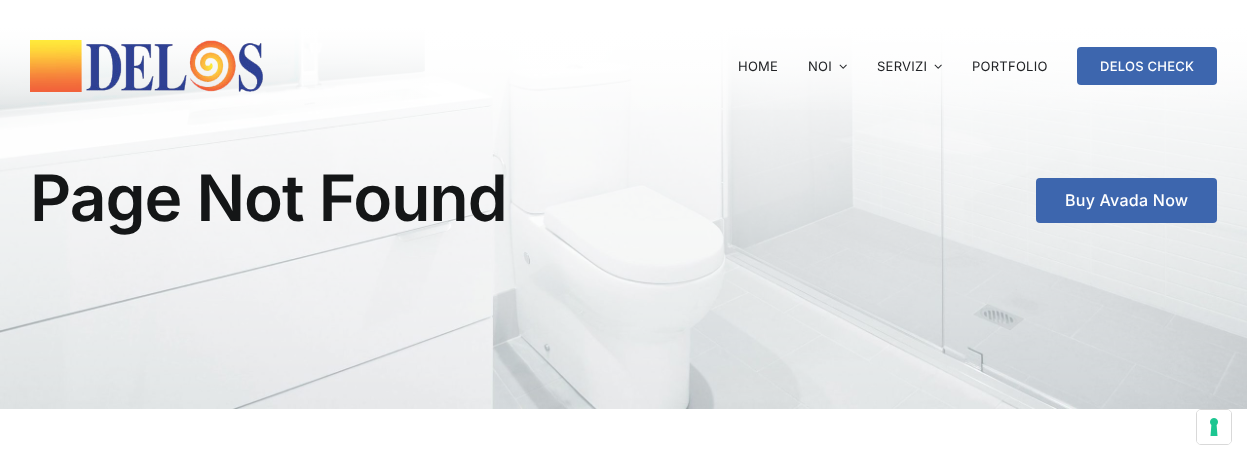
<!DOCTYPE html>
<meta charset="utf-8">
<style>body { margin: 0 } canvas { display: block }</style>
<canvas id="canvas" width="1247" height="460"></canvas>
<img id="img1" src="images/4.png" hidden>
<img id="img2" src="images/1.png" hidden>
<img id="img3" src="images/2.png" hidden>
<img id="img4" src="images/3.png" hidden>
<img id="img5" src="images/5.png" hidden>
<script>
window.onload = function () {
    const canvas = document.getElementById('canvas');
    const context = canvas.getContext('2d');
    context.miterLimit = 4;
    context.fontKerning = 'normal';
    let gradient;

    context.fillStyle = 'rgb(255, 255, 255)';
    context.fillRect(0, 0, 1247, 460);
    context.drawImage(document.getElementById('img1'), 0, 27, 1247, 382);
    gradient = context.createLinearGradient(624, 0, 624, 132);
    gradient.addColorStop(0.2, 'rgb(255, 255, 255)');
    gradient.addColorStop(0.91, 'rgba(255, 255, 255, 0)');
    context.fillStyle = gradient;
    context.fillRect(0, 27, 1247, 83);
    context.drawImage(document.getElementById('img2'), 30, 40, 233, 52);
    context.drawImage(document.getElementById('img3'), 839, 64, 8, 5);
    context.drawImage(document.getElementById('img4'), 934, 64, 8, 5);
    context.fillStyle = 'rgb(61, 102, 174)';
    context.beginPath();
    context.roundRect(1077, 47, 140, 38, 4);
    context.fill();
    context.beginPath();
    context.roundRect(1036, 178, 181, 45, 4);
    context.fill();
    context.beginPath();
    context.roundRect(1196.5, 409.5, 35, 35, 4.5);
    context.strokeStyle = 'rgb(217, 217, 217)';
    context.stroke();
    context.fillStyle = 'rgb(255, 255, 255)';
    context.beginPath();
    context.roundRect(1197, 410, 34, 34, 4);
    context.fill();
    context.drawImage(document.getElementById('img5'), 1210, 418, 8, 18);
    context.letterSpacing = '0.25px';
    context.font = '13px Inter';
    context.fillStyle = 'rgb(33, 35, 38)';
    context.fillText('HOME', 738, 71);
    context.fillText('NOI', 808, 71);
    context.fillText('SERVIZI', 877, 71);
    context.fillText('PORTFOLIO', 972, 71);
    context.font = '500 13px Inter';
    context.fillStyle = 'rgb(255, 255, 255)';
    context.fillText('DELOS CHECK', 1100, 71);
    context.letterSpacing = '-1px';
    context.font = '600 64px Inter';
    context.fillStyle = 'rgb(20, 22, 23)';
    context.fillText('Page Not Found', 30, 221);
    context.letterSpacing = '0.25px';
    context.font = '500 16px Inter';
    context.fillStyle = 'rgb(255, 255, 255)';
    context.fillText('Buy Avada Now', 1065, 206);
};
</script>
